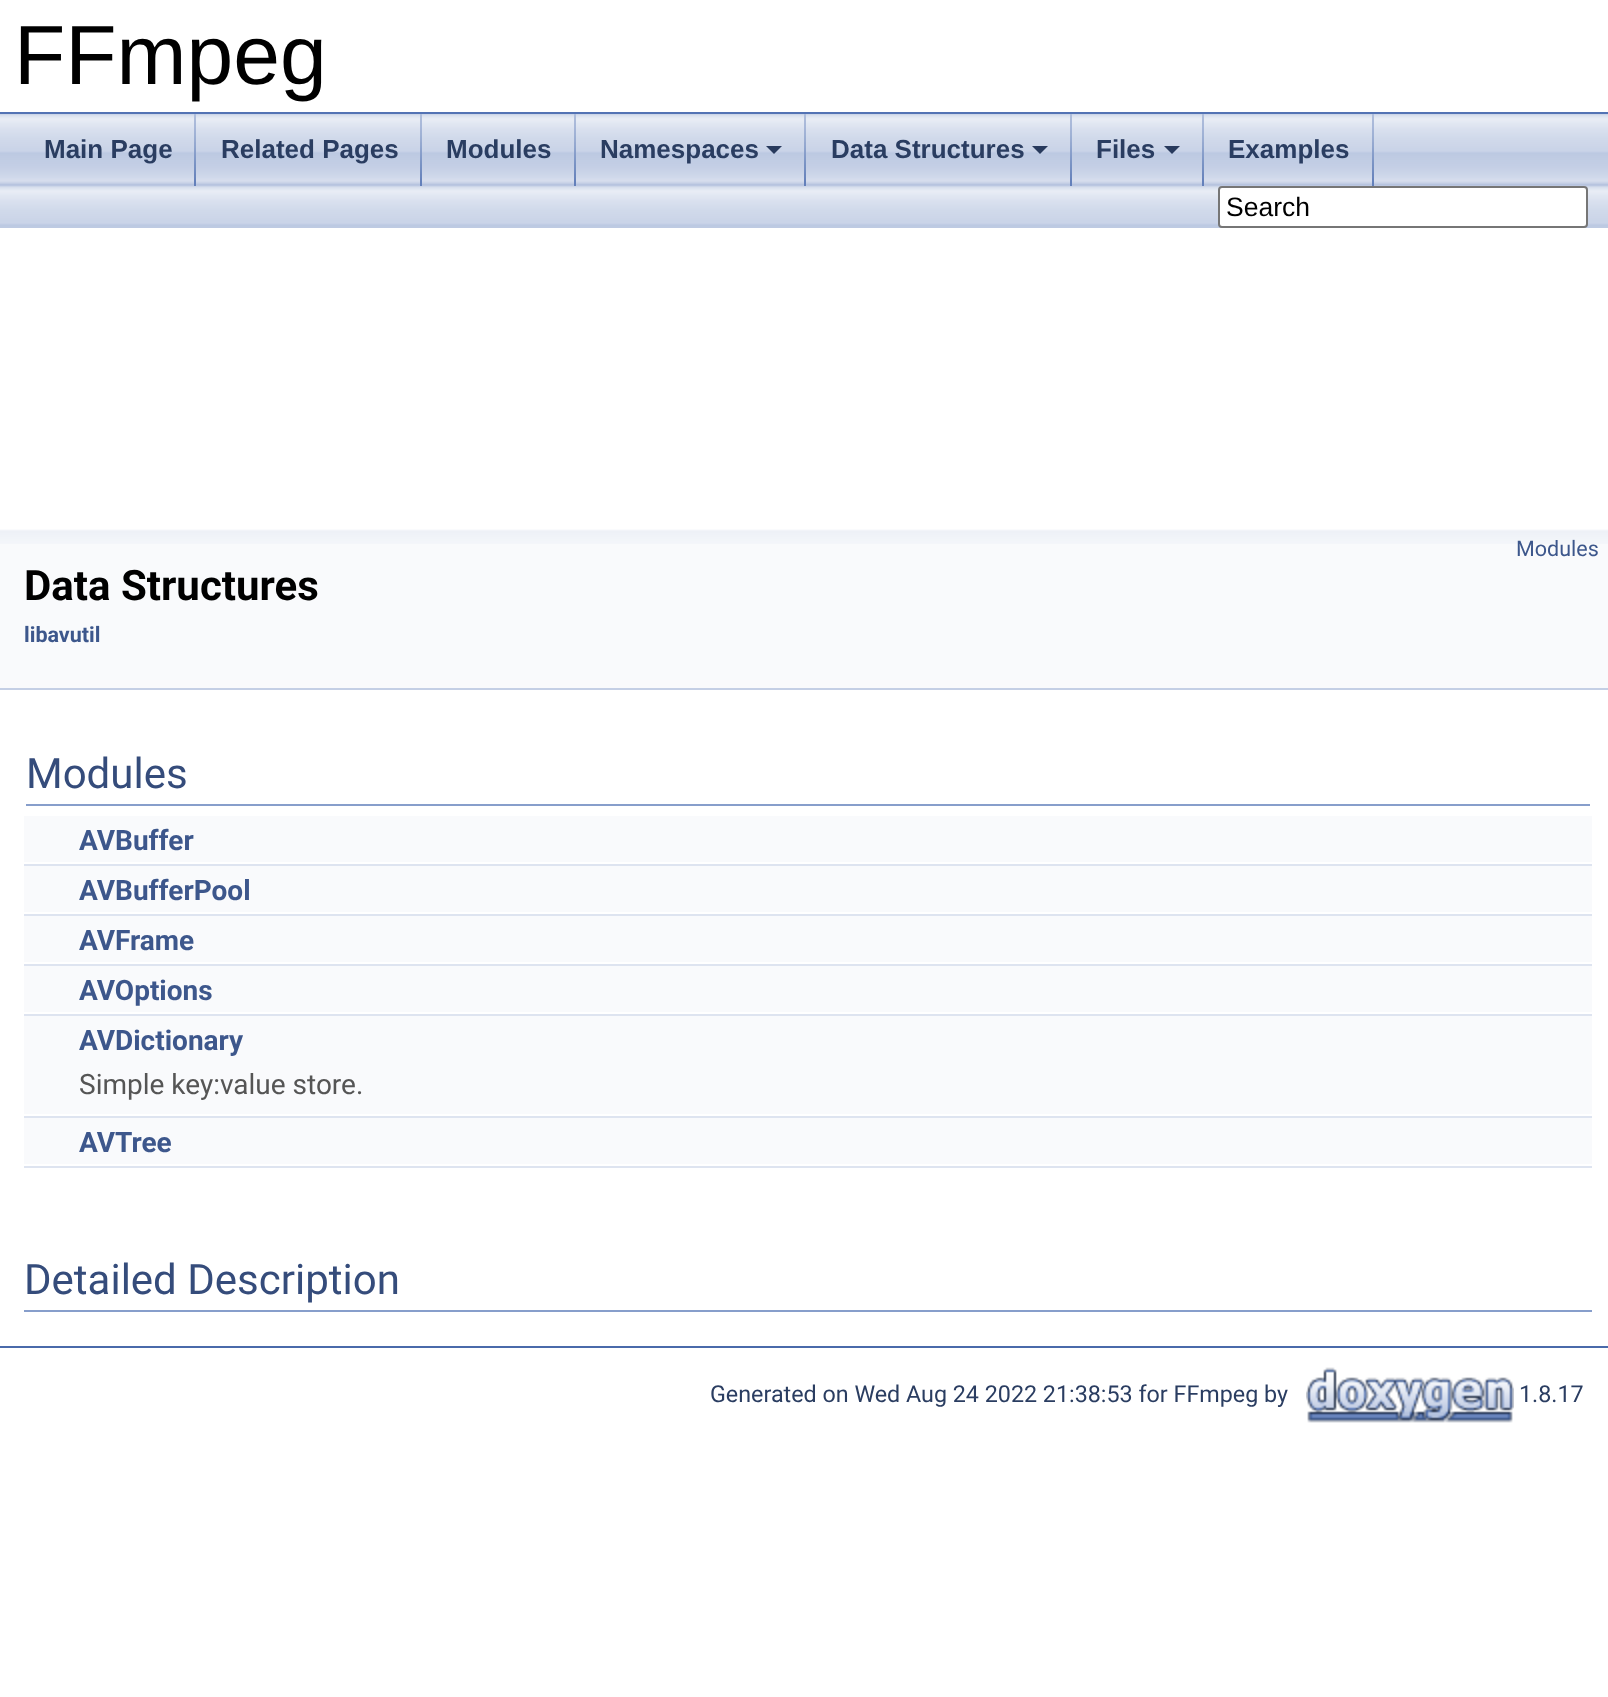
<!DOCTYPE html>
<meta charset="utf-8">
<style>body { margin: 0 } canvas { display: block }</style>
<canvas id="canvas" width="1608" height="1697"></canvas>
<img id="img1" src="images/1.png" hidden>
<img id="img2" src="images/2.png" hidden>
<img id="img3" src="images/3.png" hidden>
<img id="img4" src="images/4.png" hidden>
<script>
window.onload = function () {
    const canvas = document.getElementById('canvas');
    const context = canvas.getContext('2d');
    context.miterLimit = 4;
    context.fontKerning = 'normal';

    context.fillStyle = 'rgb(255, 255, 255)';
    context.fillRect(0, 0, 1608, 1697);
    context.fillStyle = 'rgb(83, 115, 180)';
    context.fillRect(0, 112, 1608, 2);
    context.drawImage(document.getElementById('img1'), 0, 114, 1608, 114);
    context.drawImage(document.getElementById('img2'), 194, 114, 2, 72);
    context.drawImage(document.getElementById('img2'), 420, 114, 2, 72);
    context.drawImage(document.getElementById('img2'), 574, 114, 2, 72);
    context.drawImage(document.getElementById('img2'), 804, 114, 2, 72);
    context.fillStyle = 'rgb(40, 58, 93)';
    context.beginPath();
    context.moveTo(766, 146);
    context.lineTo(782, 146);
    context.lineTo(774, 154);
    context.closePath();
    context.fill();
    context.drawImage(document.getElementById('img2'), 1070, 114, 2, 72);
    context.beginPath();
    context.moveTo(1032, 146);
    context.lineTo(1048, 146);
    context.lineTo(1040, 154);
    context.closePath();
    context.fill();
    context.drawImage(document.getElementById('img2'), 1202, 114, 2, 72);
    context.beginPath();
    context.moveTo(1164, 146);
    context.lineTo(1180, 146);
    context.lineTo(1172, 154);
    context.closePath();
    context.fill();
    context.drawImage(document.getElementById('img2'), 1372, 114, 2, 72);
    context.fillStyle = 'rgb(255, 255, 255)';
    context.beginPath();
    context.roundRect(1219, 187, 368, 40, 3);
    context.fill();
    context.strokeStyle = 'rgb(118, 118, 118)';
    context.lineWidth = 2;
    context.stroke();
    context.fillStyle = 'rgb(249, 250, 252)';
    context.fillRect(0, 544, 1608, 144);
    context.drawImage(document.getElementById('img3'), 0, 528, 1608, 16);
    context.fillStyle = 'rgb(196, 207, 229)';
    context.fillRect(0, 688, 1608, 2);
    context.fillStyle = 'rgb(135, 158, 203)';
    context.fillRect(26, 804, 1564, 2);
    context.fillStyle = 'rgb(249, 250, 252)';
    context.fillRect(24, 816, 1568, 46);
    context.fillStyle = 'rgb(222, 228, 240)';
    context.fillRect(24, 864, 1568, 2);
    context.fillStyle = 'rgb(249, 250, 252)';
    context.fillRect(24, 866, 1568, 46);
    context.fillStyle = 'rgb(222, 228, 240)';
    context.fillRect(24, 914, 1568, 2);
    context.fillStyle = 'rgb(249, 250, 252)';
    context.fillRect(24, 916, 1568, 46);
    context.fillStyle = 'rgb(222, 228, 240)';
    context.fillRect(24, 964, 1568, 2);
    context.fillStyle = 'rgb(249, 250, 252)';
    context.fillRect(24, 966, 1568, 46);
    context.fillStyle = 'rgb(222, 228, 240)';
    context.fillRect(24, 1014, 1568, 2);
    context.fillStyle = 'rgb(249, 250, 252)';
    context.fillRect(24, 1016, 1568, 46);
    context.fillRect(24, 1062, 1568, 52);
    context.fillStyle = 'rgb(222, 228, 240)';
    context.fillRect(24, 1116, 1568, 2);
    context.fillStyle = 'rgb(249, 250, 252)';
    context.fillRect(24, 1118, 1568, 46);
    context.fillStyle = 'rgb(222, 228, 240)';
    context.fillRect(24, 1166, 1568, 2);
    context.fillStyle = 'rgb(135, 158, 203)';
    context.fillRect(24, 1310, 1568, 2);
    context.fillStyle = 'rgb(74, 106, 170)';
    context.fillRect(0, 1346, 1608, 2);
    context.drawImage(document.getElementById('img4'), 1306, 1367, 208, 56);
    context.font = '84px Liberation Sans';
    context.fillStyle = 'rgb(0, 0, 0)';
    context.fillText('FFmpeg', 14, 84);
    context.font = 'bold 26px Liberation Sans';
    context.fillStyle = 'rgb(42, 61, 97)';
    context.fillText('Main Page', 44, 158);
    context.fillText('Related Pages', 221, 158);
    context.fillText('Modules', 446, 158);
    context.fillText('Namespaces', 600, 158);
    context.fillText('Data Structures', 831, 158);
    context.fillText('Files', 1096, 158);
    context.fillText('Examples', 1228, 158);
    context.font = '26.5px Liberation Sans';
    context.fillStyle = 'rgb(0, 0, 0)';
    context.fillText('Search', 1226, 216);
    context.font = '21.5px Roboto';
    context.fillStyle = 'rgb(61, 87, 140)';
    context.fillText('Modules', 1516, 556);
    context.font = 'bold 42px Roboto';
    context.fillStyle = 'rgb(0, 0, 0)';
    context.fillText('Data Structures', 24, 600);
    context.font = 'bold 21.5px Roboto';
    context.fillStyle = 'rgb(61, 87, 140)';
    context.fillText('libavutil', 24, 642);
    context.font = '42px Roboto';
    context.fillStyle = 'rgb(53, 76, 123)';
    context.fillText('Modules', 26, 788);
    context.font = 'bold 28px Roboto';
    context.fillStyle = 'rgb(61, 87, 140)';
    context.fillText('AVBuffer', 79, 850);
    context.fillText('AVBufferPool', 79, 900);
    context.fillText('AVFrame', 79, 950);
    context.fillText('AVOptions', 79, 1000);
    context.fillText('AVDictionary', 79, 1050);
    context.font = '28px Roboto';
    context.fillStyle = 'rgb(85, 85, 85)';
    context.fillText('Simple key:value store.', 79, 1094);
    context.font = 'bold 28px Roboto';
    context.fillStyle = 'rgb(61, 87, 140)';
    context.fillText('AVTree', 79, 1152);
    context.font = '42px Roboto';
    context.fillStyle = 'rgb(53, 76, 123)';
    context.fillText('Detailed Description', 24, 1294);
    context.font = '23.3px Roboto';
    context.fillStyle = 'rgb(42, 61, 97)';
    context.fillText('Generated on Wed Aug 24 2022 21:38:53 for FFmpeg by', 710, 1402);
    context.fillText('1.8.17', 1519, 1402);
};
</script>
